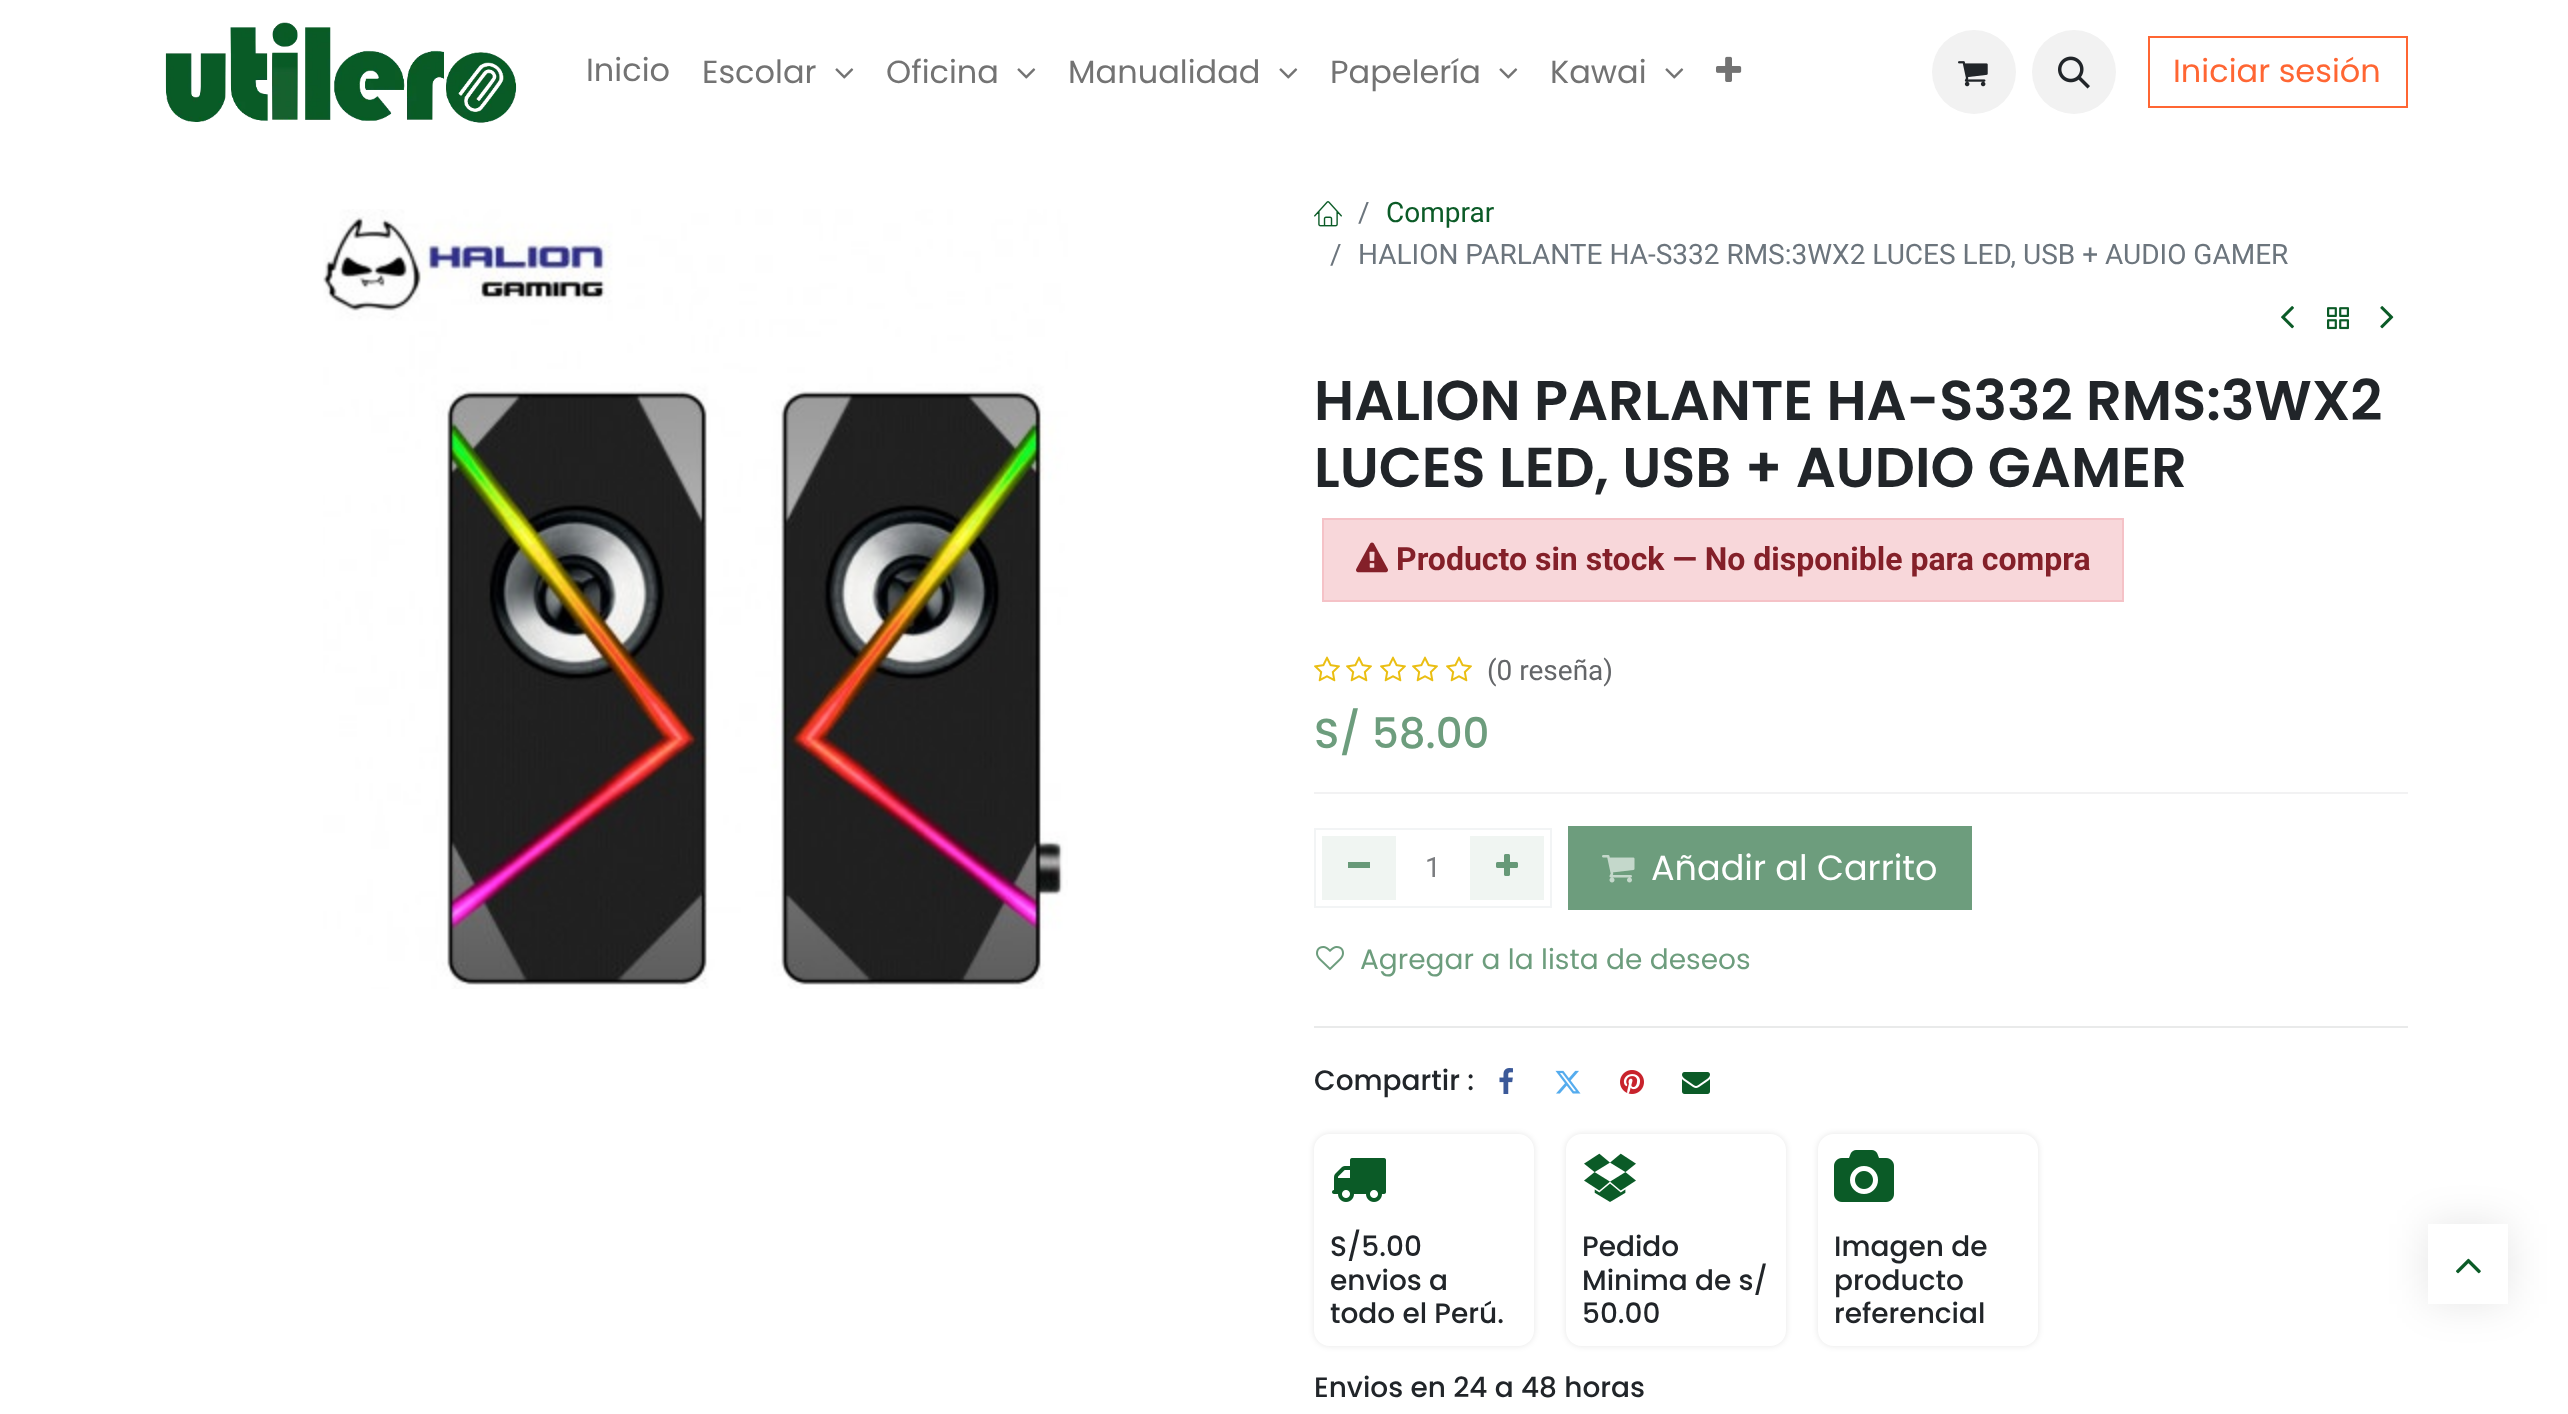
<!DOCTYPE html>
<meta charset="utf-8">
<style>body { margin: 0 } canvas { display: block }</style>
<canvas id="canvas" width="2568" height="1414"></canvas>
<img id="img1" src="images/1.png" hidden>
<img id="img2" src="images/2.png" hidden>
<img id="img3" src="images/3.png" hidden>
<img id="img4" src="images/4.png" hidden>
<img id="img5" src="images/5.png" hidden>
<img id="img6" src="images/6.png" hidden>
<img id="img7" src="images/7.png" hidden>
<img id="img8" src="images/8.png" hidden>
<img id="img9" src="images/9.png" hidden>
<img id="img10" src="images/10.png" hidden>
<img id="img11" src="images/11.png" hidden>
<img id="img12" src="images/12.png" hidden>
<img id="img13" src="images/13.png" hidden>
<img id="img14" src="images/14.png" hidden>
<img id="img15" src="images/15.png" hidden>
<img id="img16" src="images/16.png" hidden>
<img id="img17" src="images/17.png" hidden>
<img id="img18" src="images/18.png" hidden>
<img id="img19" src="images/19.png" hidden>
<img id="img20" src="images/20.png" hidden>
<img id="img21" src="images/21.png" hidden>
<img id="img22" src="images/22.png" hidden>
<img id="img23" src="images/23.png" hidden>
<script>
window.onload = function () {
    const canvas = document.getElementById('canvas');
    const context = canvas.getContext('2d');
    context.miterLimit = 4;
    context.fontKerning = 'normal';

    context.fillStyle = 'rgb(255, 255, 255)';
    context.fillRect(0, 0, 2568, 1414);
    context.drawImage(document.getElementById('img1'), 165, 22, 352, 101);
    context.drawImage(document.getElementById('img2'), 835, 68, 19, 11);
    context.drawImage(document.getElementById('img2'), 1017, 68, 19, 11);
    context.drawImage(document.getElementById('img2'), 1279, 68, 19, 11);
    context.drawImage(document.getElementById('img2'), 1499, 68, 19, 11);
    context.drawImage(document.getElementById('img2'), 1665, 68, 19, 11);
    context.drawImage(document.getElementById('img3'), 1716, 56, 26, 26);
    context.fillStyle = 'rgb(242, 242, 242)';
    context.beginPath();
    context.arc(1974, 72, 42, 0, 2 * Math.PI);
    context.fill();
    context.drawImage(document.getElementById('img4'), 1958, 61, 30, 26);
    context.beginPath();
    context.arc(2074, 72, 42, 0, 2 * Math.PI);
    context.fill();
    context.drawImage(document.getElementById('img5'), 2058, 56, 32, 33);
    context.strokeStyle = 'rgb(255, 102, 51)';
    context.lineWidth = 2;
    context.strokeRect(2149, 37, 258, 70);
    context.drawImage(document.getElementById('img6'), 323, 209, 745, 780);
    context.drawImage(document.getElementById('img7'), 1314, 201, 28, 26);
    context.drawImage(document.getElementById('img8'), 2281, 306, 13, 23);
    context.drawImage(document.getElementById('img9'), 2327, 307, 22, 23);
    context.drawImage(document.getElementById('img10'), 2380, 306, 14, 23);
    context.fillStyle = 'rgb(248, 215, 218)';
    context.beginPath();
    context.rect(1323, 519, 800, 82);
    context.fill();
    context.strokeStyle = 'rgb(245, 194, 199)';
    context.stroke();
    context.drawImage(document.getElementById('img11'), 1356, 542, 32, 31);
    context.drawImage(document.getElementById('img12'), 1314, 656, 26, 26);
    context.drawImage(document.getElementById('img12'), 1346, 656, 26, 26);
    context.drawImage(document.getElementById('img12'), 1380, 656, 26, 26);
    context.drawImage(document.getElementById('img12'), 1412, 656, 26, 26);
    context.drawImage(document.getElementById('img12'), 1446, 656, 26, 26);
    context.fillStyle = 'rgb(242, 242, 243)';
    context.fillRect(1314, 792, 1094, 2);
    context.strokeStyle = 'rgb(242, 244, 245)';
    context.strokeRect(1315, 829, 236, 78);
    context.fillStyle = 'rgb(240, 245, 242)';
    context.fillRect(1322, 836, 74, 64);
    context.fillStyle = 'rgb(103, 153, 120)';
    context.fillRect(1348, 862, 22, 6);
    context.fillStyle = 'rgb(240, 245, 242)';
    context.fillRect(1470, 836, 74, 64);
    context.drawImage(document.getElementById('img13'), 1496, 854, 22, 22);
    context.fillStyle = 'rgb(109, 157, 125)';
    context.fillRect(1568, 826, 404, 84);
    context.drawImage(document.getElementById('img14'), 1602, 855, 33, 28);
    context.drawImage(document.getElementById('img15'), 1316, 946, 28, 24);
    context.fillStyle = 'rgb(233, 234, 234)';
    context.fillRect(1314, 1026, 1094, 2);
    context.drawImage(document.getElementById('img16'), 1499, 1068, 14, 26);
    context.drawImage(document.getElementById('img17'), 1555, 1070, 26, 24);
    context.drawImage(document.getElementById('img18'), 1620, 1070, 24, 24);
    context.drawImage(document.getElementById('img19'), 1682, 1072, 28, 22);
    context.save();
    context.beginPath();
    context.moveTo(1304, 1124);
    context.lineTo(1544, 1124);
    context.lineTo(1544, 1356);
    context.lineTo(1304, 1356);
    context.closePath();
    context.moveTo(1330, 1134);
    context.lineTo(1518, 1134);
    context.bezierCurveTo(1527, 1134, 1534, 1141, 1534, 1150);
    context.lineTo(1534, 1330);
    context.bezierCurveTo(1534, 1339, 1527, 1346, 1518, 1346);
    context.lineTo(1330, 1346);
    context.bezierCurveTo(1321, 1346, 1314, 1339, 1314, 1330);
    context.lineTo(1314, 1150);
    context.bezierCurveTo(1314, 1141, 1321, 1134, 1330, 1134);
    context.closePath();
    context.clip('evenodd');
    context.fillStyle = 'rgba(0, 0, 0, 0.1)';
    context.filter = 'blur(3px)';
    context.beginPath();
    context.roundRect(1314, 1134, 220, 212, 16);
    context.fill();
    context.filter = 'none';
    context.restore();
    context.drawImage(document.getElementById('img20'), 1332, 1158, 54, 44);
    context.save();
    context.beginPath();
    context.moveTo(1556, 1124);
    context.lineTo(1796, 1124);
    context.lineTo(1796, 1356);
    context.lineTo(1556, 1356);
    context.closePath();
    context.moveTo(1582, 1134);
    context.lineTo(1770, 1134);
    context.bezierCurveTo(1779, 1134, 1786, 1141, 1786, 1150);
    context.lineTo(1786, 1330);
    context.bezierCurveTo(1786, 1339, 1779, 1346, 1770, 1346);
    context.lineTo(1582, 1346);
    context.bezierCurveTo(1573, 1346, 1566, 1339, 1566, 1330);
    context.lineTo(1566, 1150);
    context.bezierCurveTo(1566, 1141, 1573, 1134, 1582, 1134);
    context.closePath();
    context.clip('evenodd');
    context.fillStyle = 'rgba(0, 0, 0, 0.1)';
    context.filter = 'blur(3px)';
    context.beginPath();
    context.roundRect(1566, 1134, 220, 212, 16);
    context.fill();
    context.filter = 'none';
    context.restore();
    context.drawImage(document.getElementById('img21'), 1584, 1153, 52, 49);
    context.save();
    context.beginPath();
    context.moveTo(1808, 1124);
    context.lineTo(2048, 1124);
    context.lineTo(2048, 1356);
    context.lineTo(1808, 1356);
    context.closePath();
    context.moveTo(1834, 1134);
    context.lineTo(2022, 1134);
    context.bezierCurveTo(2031, 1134, 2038, 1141, 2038, 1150);
    context.lineTo(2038, 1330);
    context.bezierCurveTo(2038, 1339, 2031, 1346, 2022, 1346);
    context.lineTo(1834, 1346);
    context.bezierCurveTo(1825, 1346, 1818, 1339, 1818, 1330);
    context.lineTo(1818, 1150);
    context.bezierCurveTo(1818, 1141, 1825, 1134, 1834, 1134);
    context.closePath();
    context.clip('evenodd');
    context.fillStyle = 'rgba(0, 0, 0, 0.1)';
    context.filter = 'blur(3px)';
    context.beginPath();
    context.roundRect(1818, 1134, 220, 212, 16);
    context.fill();
    context.filter = 'none';
    context.restore();
    context.drawImage(document.getElementById('img22'), 1834, 1150, 60, 52);
    context.save();
    context.beginPath();
    context.moveTo(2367, 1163);
    context.lineTo(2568, 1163);
    context.lineTo(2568, 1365);
    context.lineTo(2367, 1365);
    context.closePath();
    context.moveTo(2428, 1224);
    context.lineTo(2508, 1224);
    context.lineTo(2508, 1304);
    context.lineTo(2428, 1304);
    context.closePath();
    context.clip('evenodd');
    context.fillStyle = 'rgba(0, 0, 0, 0.1)';
    context.filter = 'blur(20px)';
    context.beginPath();
    context.rect(2428, 1224, 80, 80);
    context.fill();
    context.filter = 'none';
    context.restore();
    context.drawImage(document.getElementById('img23'), 2456, 1258, 25, 16);
    context.font = '32px Poppins';
    context.fillStyle = 'rgb(115, 115, 115)';
    context.fillText('Inicio', 586, 81);
    context.fillText('Escolar', 702, 83);
    context.fillText('Oficina', 886, 83);
    context.fillText('Manualidad', 1068, 83);
    context.fillText('Papelería', 1330, 83);
    context.fillText('Kawai', 1550, 83);
    context.fillStyle = 'rgb(255, 102, 51)';
    context.fillText('Iniciar sesión', 2173, 82);
    context.font = '28px Roboto';
    context.fillStyle = 'rgb(108, 117, 125)';
    context.fillText('/', 1358, 222);
    context.fillStyle = 'rgb(11, 91, 39)';
    context.fillText('Comprar', 1386, 222);
    context.fillStyle = 'rgb(108, 117, 125)';
    context.fillText('/', 1330, 264);
    context.fillText('HALION PARLANTE HA-S332 RMS:3WX2 LUCES LED, USB + AUDIO GAMER', 1358, 264);
    context.font = '600 56px Poppins';
    context.fillStyle = 'rgb(33, 37, 41)';
    context.fillText('HALION PARLANTE HA-S332 RMS:3WX2', 1314, 420);
    context.fillText('LUCES LED, USB + AUDIO GAMER', 1314, 487);
    context.font = 'bold 32px Roboto';
    context.fillStyle = 'rgb(132, 32, 41)';
    context.fillText('Producto sin stock — No disponible para compra', 1396, 570);
    context.font = '28px Roboto';
    context.fillStyle = 'rgb(100, 102, 105)';
    context.fillText('(0 reseña)', 1487, 680);
    context.font = '500 42px Poppins';
    context.fillStyle = 'rgb(109, 157, 125)';
    context.fillText('S/ 58.00', 1314, 748);
    context.font = '28px Roboto';
    context.fillStyle = 'rgb(122, 124, 127)';
    context.fillText('1', 1425, 877);
    context.font = '35px Poppins';
    context.fillStyle = 'rgb(255, 255, 255)';
    context.fillText('Añadir al Carrito', 1651, 880);
    context.font = '28px Poppins';
    context.fillStyle = 'rgb(109, 157, 125)';
    context.fillText('Agregar a la lista de deseos', 1360, 969);
    context.font = '500 28px Poppins';
    context.fillStyle = 'rgb(33, 37, 41)';
    context.fillText('Compartir :', 1314, 1090);
    context.fillText('S/5.00', 1330, 1256);
    context.fillText('envios a', 1330, 1290);
    context.fillText('todo el Perú.', 1330, 1323);
    context.fillText('Pedido', 1582, 1256);
    context.fillText('Minima de s/', 1582, 1290);
    context.fillText('50.00', 1582, 1323);
    context.fillText('Imagen de', 1834, 1256);
    context.fillText('producto', 1834, 1290);
    context.fillText('referencial', 1834, 1323);
    context.fillText('Envios en 24 a 48 horas', 1314, 1397);
};
</script>
